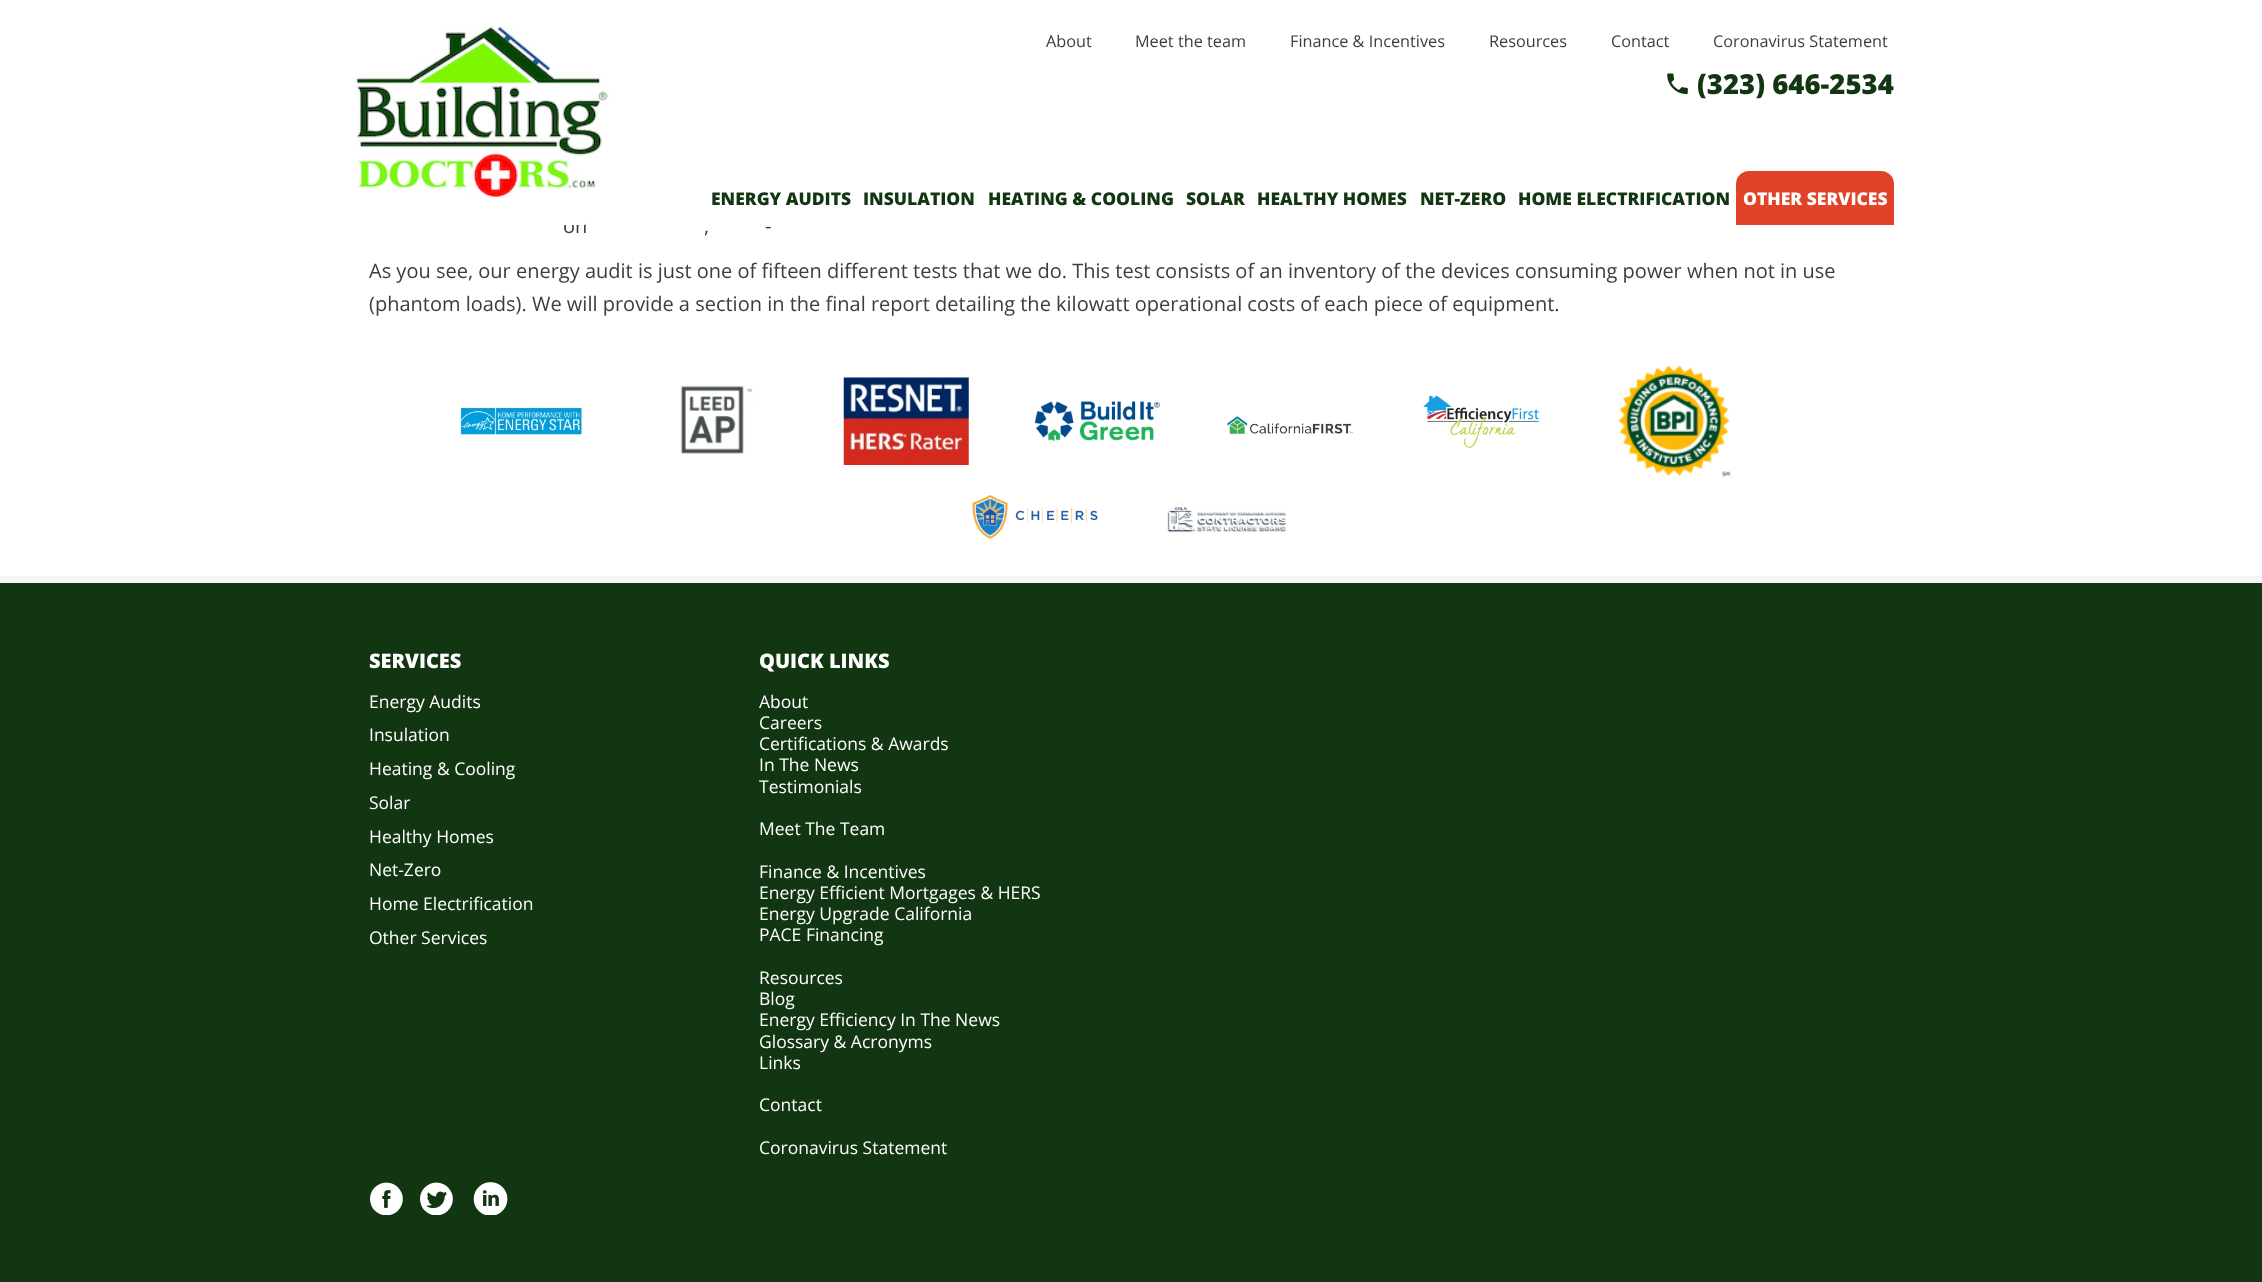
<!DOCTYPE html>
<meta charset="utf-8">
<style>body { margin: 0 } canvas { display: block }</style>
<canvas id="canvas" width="2262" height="1282"></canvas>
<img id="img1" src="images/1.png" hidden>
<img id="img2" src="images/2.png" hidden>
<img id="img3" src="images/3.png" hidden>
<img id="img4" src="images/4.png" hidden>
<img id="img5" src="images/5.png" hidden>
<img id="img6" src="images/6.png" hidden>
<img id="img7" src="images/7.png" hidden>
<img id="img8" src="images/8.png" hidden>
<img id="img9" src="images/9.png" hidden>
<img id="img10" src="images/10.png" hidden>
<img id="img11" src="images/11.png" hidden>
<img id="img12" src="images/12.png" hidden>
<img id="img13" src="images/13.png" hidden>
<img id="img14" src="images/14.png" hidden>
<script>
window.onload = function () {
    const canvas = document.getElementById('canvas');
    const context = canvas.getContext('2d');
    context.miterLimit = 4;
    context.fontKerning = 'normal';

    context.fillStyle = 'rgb(255, 255, 255)';
    context.fillRect(0, 0, 2262, 1282);
    context.drawImage(document.getElementById('img1'), 355, 26, 255, 172);
    context.drawImage(document.getElementById('img2'), 1667, 73, 21, 22);
    context.fillStyle = 'rgb(224, 67, 40)';
    context.beginPath();
    context.roundRect(1736, 171, 158, 54, [13, 13, 0, 0]);
    context.fill();
    context.fillStyle = 'rgb(18, 53, 18)';
    context.fillRect(0, 583, 2262, 699);
    context.fillStyle = 'rgb(245, 245, 245)';
    context.fillRect(0, 576, 2262, 7);
    context.drawImage(document.getElementById('img3'), 459, 407, 124, 29);
    context.drawImage(document.getElementById('img4'), 680, 385, 73, 69);
    context.drawImage(document.getElementById('img5'), 843, 377, 126, 88);
    context.drawImage(document.getElementById('img6'), 1035, 401, 125, 41);
    context.drawImage(document.getElementById('img7'), 1227, 416, 126, 18);
    context.drawImage(document.getElementById('img8'), 1423, 395, 116, 53);
    context.drawImage(document.getElementById('img9'), 1618, 365, 113, 112);
    context.drawImage(document.getElementById('img10'), 972, 495, 126, 44);
    context.drawImage(document.getElementById('img11'), 1167, 502, 120, 31);
    context.drawImage(document.getElementById('img12'), 370, 1182, 33, 33);
    context.drawImage(document.getElementById('img13'), 420, 1182, 33, 33);
    context.drawImage(document.getElementById('img14'), 473, 1182, 35, 33);
    context.font = '16.25px Open Sans';
    context.fillStyle = 'rgb(61, 61, 61)';
    context.fillText('About', 1046, 47);
    context.fillText('Meet the team', 1135, 47);
    context.fillText('Finance & Incentives', 1290, 47);
    context.fillText('Resources', 1489, 47);
    context.fillText('Contact', 1611, 47);
    context.fillText('Coronavirus Statement', 1713, 47);
    context.font = '800 27.5px Open Sans';
    context.fillStyle = 'rgb(18, 53, 18)';
    context.fillText('(323) 646-2534', 1697, 94);
    context.font = '800 17.5px Open Sans';
    context.fillText('ENERGY AUDITS', 711, 205);
    context.fillText('INSULATION', 863, 205);
    context.fillText('HEATING & COOLING', 988, 205);
    context.fillText('SOLAR', 1186, 205);
    context.fillText('HEALTHY HOMES', 1257, 205);
    context.fillText('NET-ZERO', 1420, 205);
    context.fillText('HOME ELECTRIFICATION', 1518, 205);
    context.fillStyle = 'rgb(255, 255, 255)';
    context.fillText('OTHER SERVICES', 1743, 205);
    context.font = '20px Open Sans';
    context.fillStyle = 'rgb(61, 61, 61)';
    context.fillText('on', 563, 233);
    context.fillStyle = 'rgb(255, 255, 255)';
    context.fillRect(564, 222, 21, 3);
    context.fillStyle = 'rgb(61, 61, 61)';
    context.fillText('-', 765, 233);
    context.fillText(',', 704, 233);
    context.fillText('As you see, our energy audit is just one of fifteen different tests that we do. This test consists of an inventory of the devices consuming power when not in use', 369, 278);
    context.fillText('(phantom loads). We will provide a section in the final report detailing the kilowatt operational costs of each piece of equipment.', 369, 311);
    context.font = '800 20px Open Sans';
    context.fillStyle = 'rgb(255, 255, 255)';
    context.fillText('SERVICES', 369, 668);
    context.font = '17.5px Open Sans';
    context.fillText('Energy Audits', 369, 708);
    context.fillText('Insulation', 369, 741);
    context.fillText('Heating & Cooling', 369, 775);
    context.fillText('Solar', 369, 809);
    context.fillText('Healthy Homes', 369, 843);
    context.fillText('Net-Zero', 369, 876);
    context.fillText('Home Electrification', 369, 910);
    context.fillText('Other Services', 369, 944);
    context.font = '800 20px Open Sans';
    context.fillText('QUICK LINKS', 759, 668);
    context.font = '17.5px Open Sans';
    context.fillText('About', 759, 708);
    context.fillText('Careers', 759, 729);
    context.fillText('Certifications & Awards', 759, 750);
    context.fillText('In The News', 759, 771);
    context.fillText('Testimonials', 759, 793);
    context.fillText('Meet The Team', 759, 835);
    context.fillText('Finance & Incentives', 759, 878);
    context.fillText('Energy Efficient Mortgages & HERS', 759, 899);
    context.fillText('Energy Upgrade California', 759, 920);
    context.fillText('PACE Financing', 759, 941);
    context.fillText('Resources', 759, 984);
    context.fillText('Blog', 759, 1005);
    context.fillText('Energy Efficiency In The News', 759, 1026);
    context.fillText('Glossary & Acronyms', 759, 1048);
    context.fillText('Links', 759, 1069);
    context.fillText('Contact', 759, 1111);
    context.fillText('Coronavirus Statement', 759, 1154);
};
</script>
